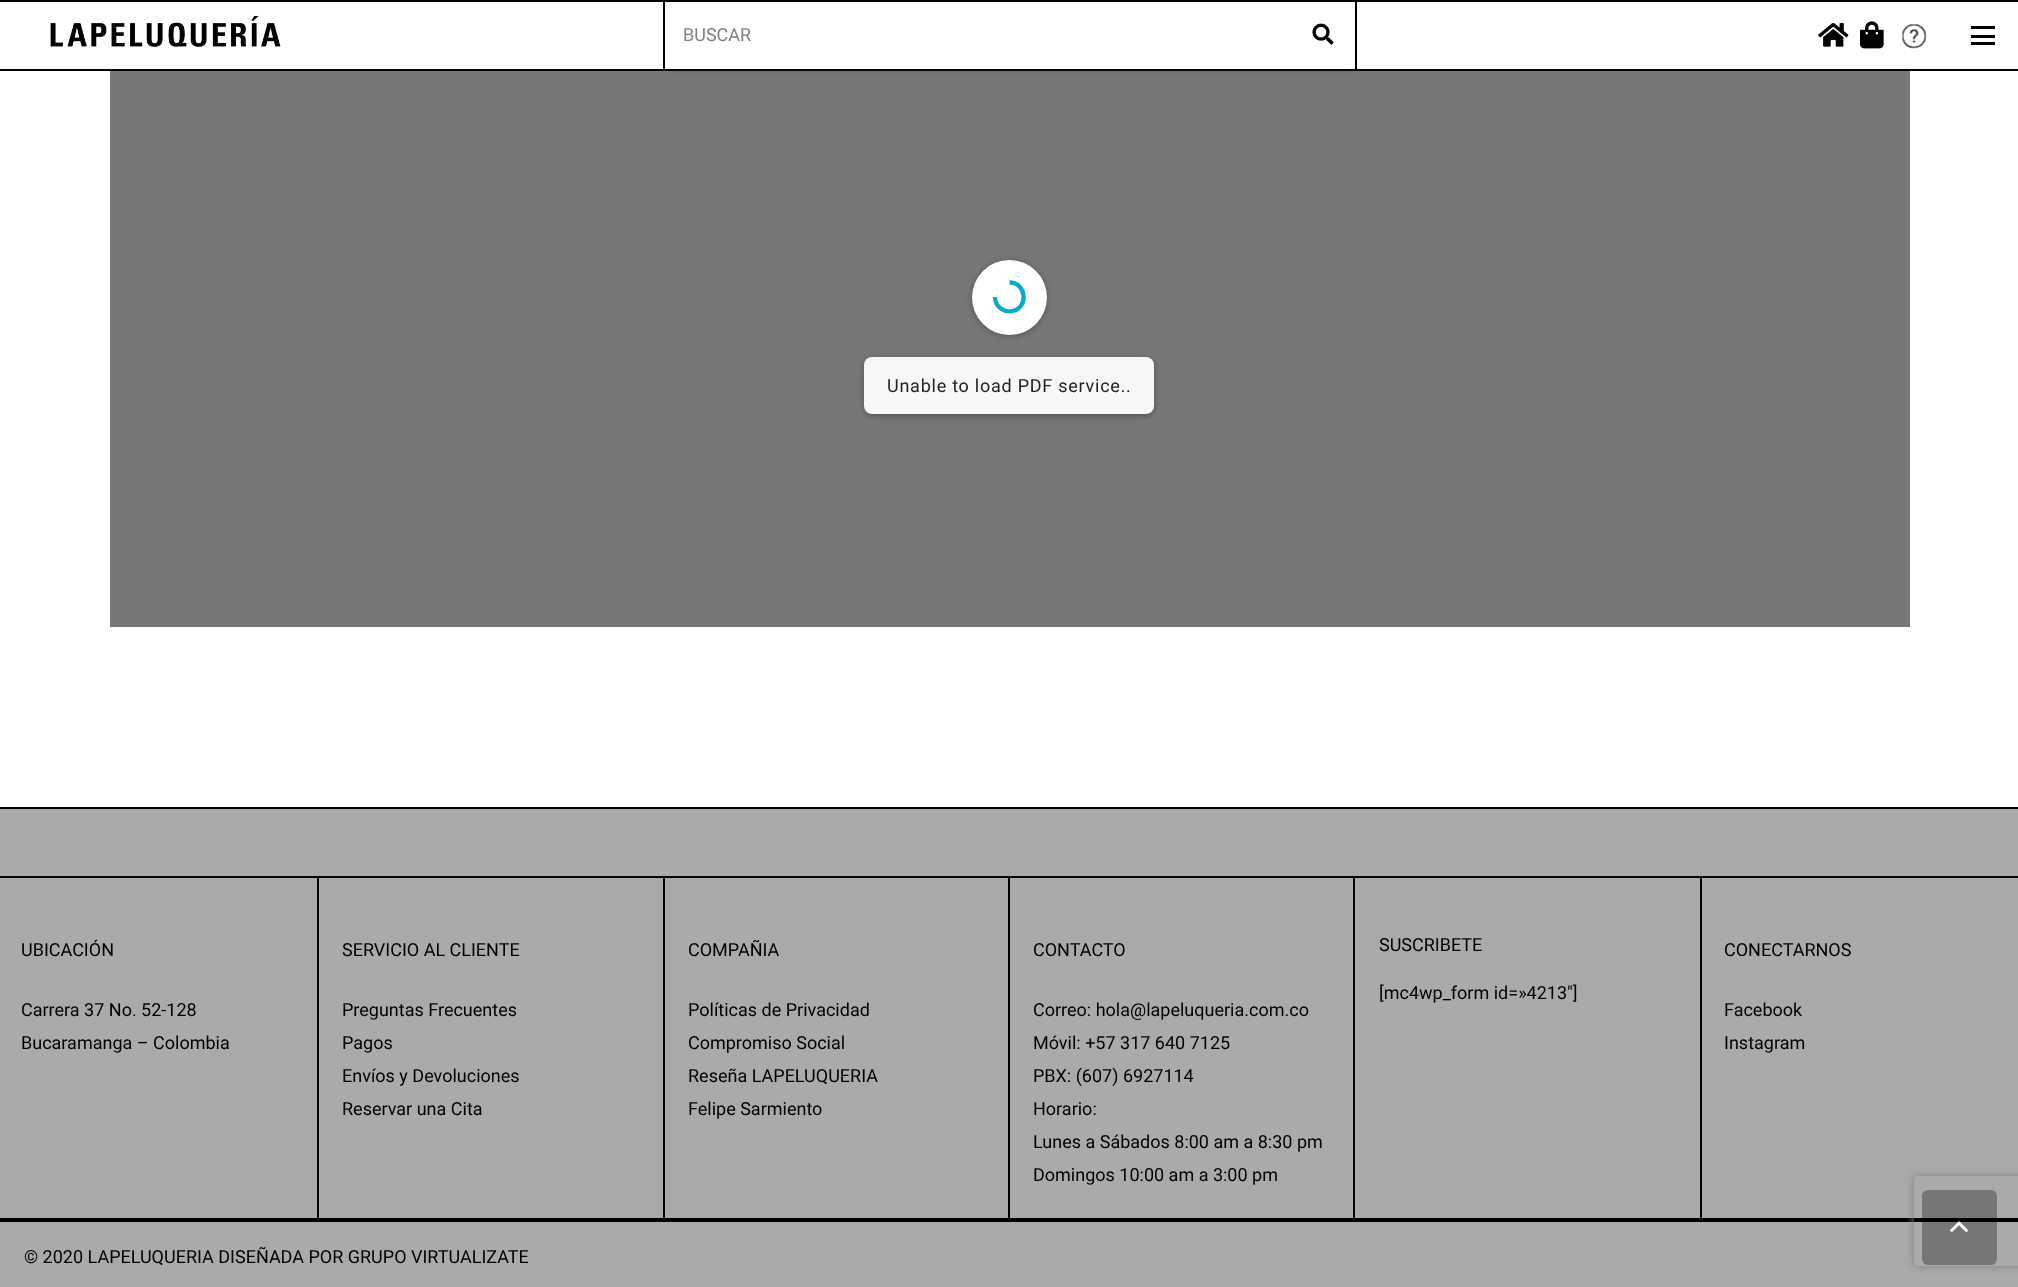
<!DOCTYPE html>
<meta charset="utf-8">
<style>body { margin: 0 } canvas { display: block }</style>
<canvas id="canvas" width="2018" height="1287"></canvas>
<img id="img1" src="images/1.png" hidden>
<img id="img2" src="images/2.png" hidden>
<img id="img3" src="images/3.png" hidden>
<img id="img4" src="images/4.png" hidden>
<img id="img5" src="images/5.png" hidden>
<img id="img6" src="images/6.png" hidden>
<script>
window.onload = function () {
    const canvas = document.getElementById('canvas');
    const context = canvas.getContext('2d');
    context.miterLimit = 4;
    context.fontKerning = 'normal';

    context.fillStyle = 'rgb(255, 255, 255)';
    context.fillRect(0, 0, 2018, 1287);
    context.fillStyle = 'rgb(0, 0, 0)';
    context.fillRect(0, 0, 2018, 2);
    context.fillRect(0, 69, 2018, 2);
    context.drawImage(document.getElementById('img1'), 50, 15, 231, 32);
    context.fillRect(1355, 2, 2, 67);
    context.fillRect(663, 2, 2, 67);
    context.fillStyle = 'rgb(119, 119, 119)';
    context.fillRect(110, 71, 1800, 556);
    context.fillStyle = 'rgba(0, 0, 0, 0.1)';
    context.filter = 'blur(2px)';
    context.beginPath();
    context.roundRect(665, 3, 690, 68, 6);
    context.fill();
    context.filter = 'none';
    context.fillStyle = 'rgb(255, 255, 255)';
    context.beginPath();
    context.roundRect(665, 2, 690, 67, 6);
    context.fill();
    context.drawImage(document.getElementById('img2'), 1312, 23, 22, 22);
    context.drawImage(document.getElementById('img3'), 1818, 23, 31, 24);
    context.drawImage(document.getElementById('img4'), 1860, 21, 24, 28);
    context.drawImage(document.getElementById('img5'), 1902, 24, 25, 25);
    context.fillStyle = 'rgb(0, 0, 0)';
    context.fillRect(1971, 35, 24, 3);
    context.fillRect(1971, 26, 24, 3);
    context.fillRect(1971, 42, 24, 3);
    context.fillStyle = 'rgba(0, 0, 0, 0.3)';
    context.filter = 'blur(3px)';
    context.beginPath();
    context.roundRect(972, 261, 75, 75, 37.5);
    context.fill();
    context.filter = 'none';
    context.fillStyle = 'rgb(255, 255, 255)';
    context.beginPath();
    context.arc(1009.5, 297.5, 37.5, 0, 2 * Math.PI);
    context.fill();
    context.beginPath();
    context.moveTo(1009.5, 282.5);
    context.bezierCurveTo(1026.5, 282.5, 1029, 307.5, 1012.5, 311);
    context.bezierCurveTo(1008.5, 312, 1004.5, 311, 1001.5, 309);
    context.bezierCurveTo(997.5, 306.5, 995, 301.5, 995, 297);
    context.strokeStyle = 'rgb(7, 171, 204)';
    context.lineWidth = 4.3;
    context.stroke();
    context.fillStyle = 'rgba(0, 0, 0, 0.3)';
    context.filter = 'blur(3px)';
    context.beginPath();
    context.roundRect(864, 359, 290, 57, 8);
    context.fill();
    context.filter = 'none';
    context.fillStyle = 'rgb(247, 247, 247)';
    context.beginPath();
    context.roundRect(864, 357, 290, 57, 8);
    context.fill();
    context.fillStyle = 'rgb(170, 170, 170)';
    context.fillRect(0, 809, 2018, 409);
    context.fillStyle = 'rgb(0, 0, 0)';
    context.fillRect(0, 807, 2018, 2);
    context.fillRect(0, 876, 318, 2);
    context.fillRect(317, 876, 2, 344);
    context.fillRect(0, 1218, 318, 2);
    context.fillRect(318, 876, 1383, 2);
    context.fillRect(663, 876, 2, 344);
    context.fillRect(318, 1218, 347, 2);
    context.fillRect(1008, 876, 2, 344);
    context.fillRect(665, 1218, 345, 2);
    context.fillRect(1353, 876, 2, 344);
    context.fillRect(1010, 1218, 345, 2);
    context.fillRect(1700, 876, 2, 344);
    context.fillRect(1355, 1218, 663, 2);
    context.fillRect(1701, 876, 317, 2);
    context.fillStyle = 'rgb(170, 170, 170)';
    context.fillRect(0, 1222, 2018, 65);
    context.fillStyle = 'rgb(0, 0, 0)';
    context.fillRect(0, 1220, 2018, 2);
    context.save();
    context.beginPath();
    context.moveTo(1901, 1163);
    context.lineTo(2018, 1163);
    context.lineTo(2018, 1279);
    context.lineTo(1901, 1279);
    context.closePath();
    context.moveTo(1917, 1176);
    context.lineTo(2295, 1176);
    context.bezierCurveTo(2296.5, 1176, 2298, 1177.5, 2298, 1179);
    context.lineTo(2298, 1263);
    context.bezierCurveTo(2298, 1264.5, 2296.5, 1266, 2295, 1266);
    context.lineTo(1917, 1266);
    context.bezierCurveTo(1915.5, 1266, 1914, 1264.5, 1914, 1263);
    context.lineTo(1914, 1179);
    context.bezierCurveTo(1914, 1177.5, 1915.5, 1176, 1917, 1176);
    context.closePath();
    context.clip('evenodd');
    context.fillStyle = 'rgb(128, 128, 128)';
    context.filter = 'blur(4px)';
    context.beginPath();
    context.roundRect(1914, 1176, 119, 90, 3);
    context.fill();
    context.filter = 'none';
    context.restore();
    context.fillStyle = 'rgba(0, 0, 0, 0.3)';
    context.beginPath();
    context.roundRect(1922, 1190, 75, 75, 6);
    context.fill();
    context.drawImage(document.getElementById('img6'), 1950, 1221, 18, 11);
    context.font = '18px Roboto';
    context.fillStyle = 'rgb(128, 128, 128)';
    context.fillText('BUSCAR', 683, 41);
    context.letterSpacing = '0.75px';
    context.fillStyle = 'rgb(34, 34, 34)';
    context.fillText('Unable to load PDF service..', 887, 392);
    context.letterSpacing = '0px';
    context.fillStyle = 'rgb(0, 0, 0)';
    context.fillText('UBICACIÓN', 21, 956);
    context.fillText('Carrera 37 No. 52-128', 21, 1016);
    context.fillText('Bucaramanga – Colombia', 21, 1049);
    context.fillText('SERVICIO AL CLIENTE', 342, 956);
    context.fillText('Preguntas Frecuentes', 342, 1016);
    context.fillText('Pagos', 342, 1049);
    context.fillText('Envíos y Devoluciones', 342, 1082);
    context.fillText('Reservar una Cita', 342, 1115);
    context.fillText('COMPAÑIA', 688, 956);
    context.fillText('Políticas de Privacidad', 688, 1016);
    context.fillText('Compromiso Social', 688, 1049);
    context.fillText('Reseña LAPELUQUERIA', 688, 1082);
    context.fillText('Felipe Sarmiento', 688, 1115);
    context.fillText('CONTACTO', 1033, 956);
    context.fillText('Correo: hola@lapeluqueria.com.co', 1033, 1016);
    context.fillText('Móvil: +57 317 640 7125', 1033, 1049);
    context.fillText('PBX: (607) 6927114', 1033, 1082);
    context.fillText('Horario:', 1033, 1115);
    context.fillText('Lunes a Sábados 8:00 am a 8:30 pm', 1033, 1148);
    context.fillText('Domingos 10:00 am a 3:00 pm', 1033, 1181);
    context.fillText('SUSCRIBETE', 1379, 951);
    context.fillText('[mc4wp_form id=»4213″]', 1379, 999);
    context.fillText('CONECTARNOS', 1724, 956);
    context.fillText('Facebook', 1724, 1016);
    context.fillText('Instagram', 1724, 1049);
    context.fillText('© 2020 LAPELUQUERIA DISEÑADA POR GRUPO VIRTUALIZATE', 24, 1263);
};
</script>
